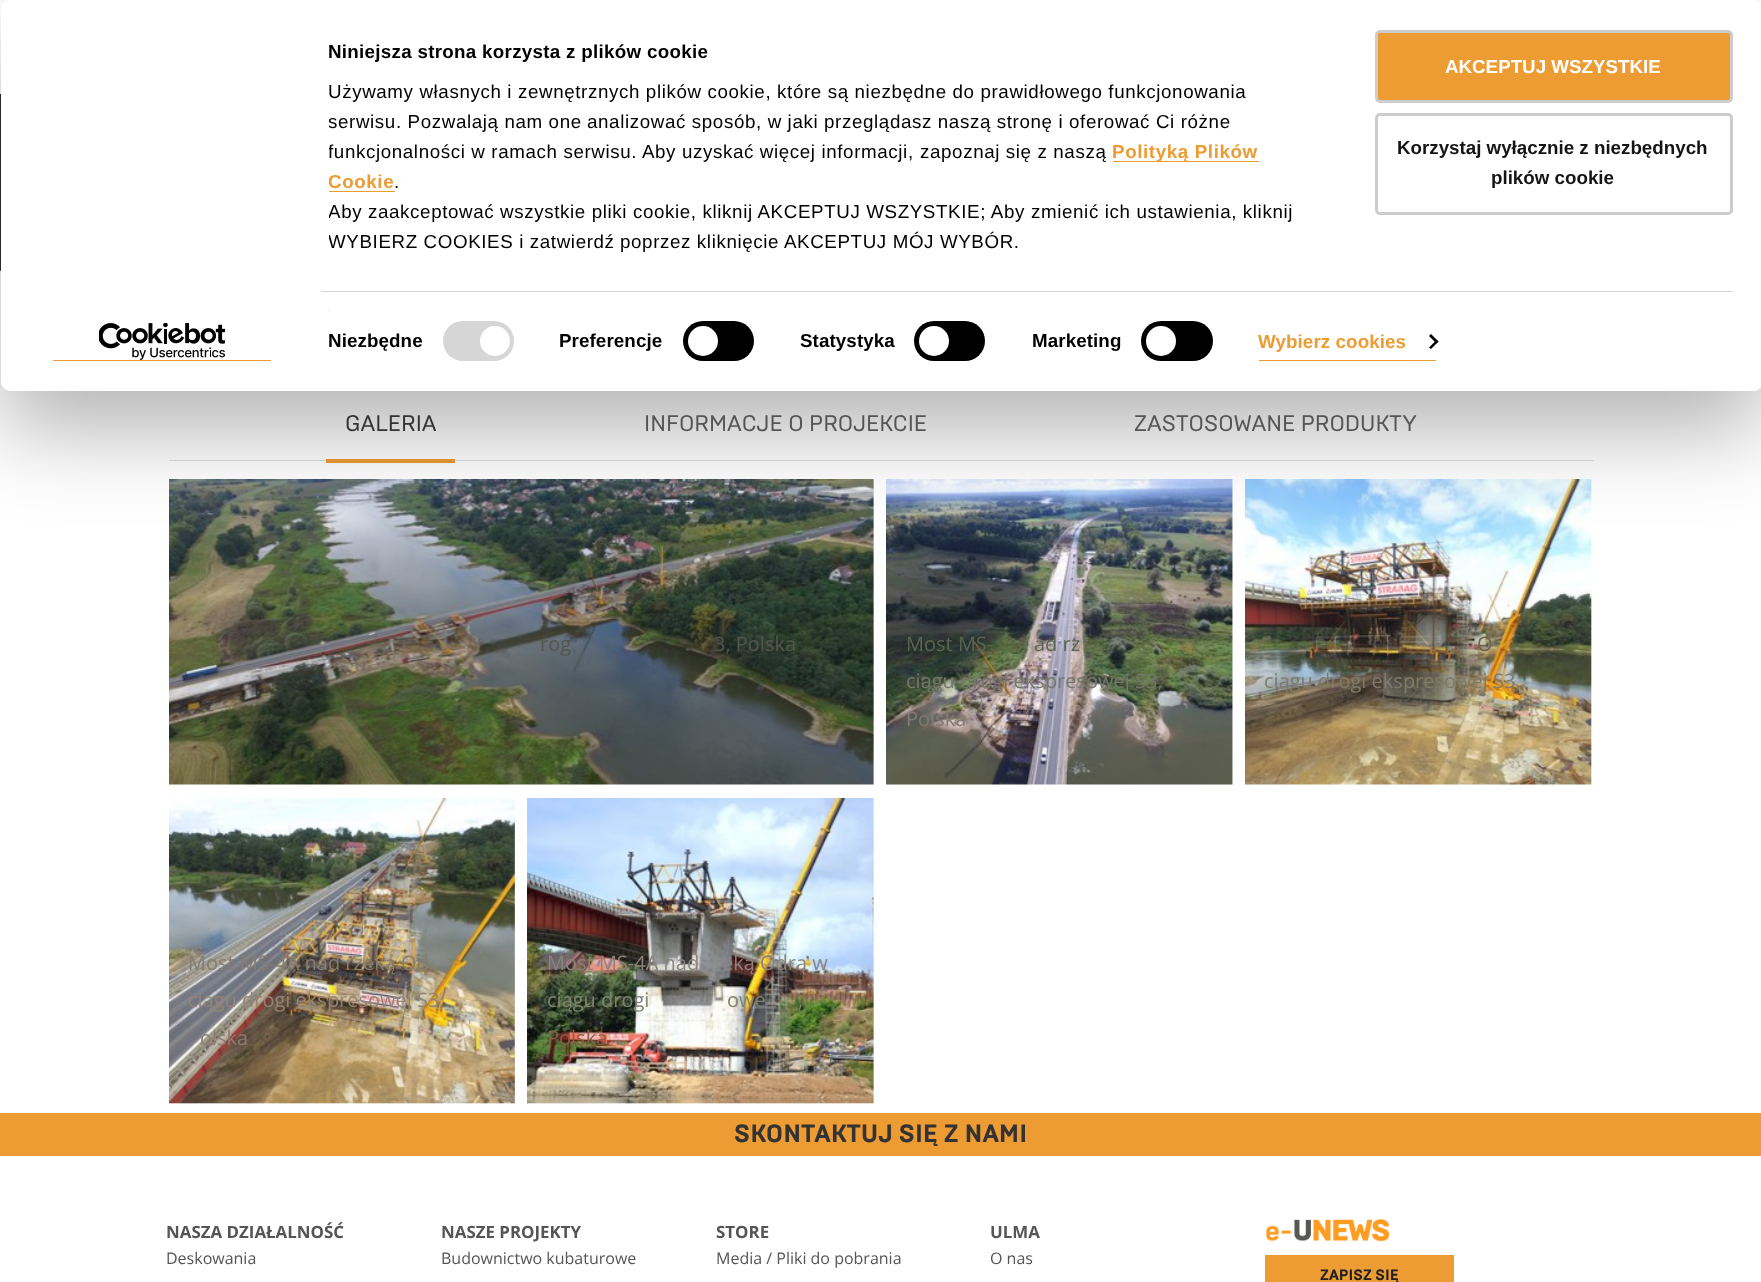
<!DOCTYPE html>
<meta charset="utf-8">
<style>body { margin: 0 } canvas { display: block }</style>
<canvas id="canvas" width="1761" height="1282"></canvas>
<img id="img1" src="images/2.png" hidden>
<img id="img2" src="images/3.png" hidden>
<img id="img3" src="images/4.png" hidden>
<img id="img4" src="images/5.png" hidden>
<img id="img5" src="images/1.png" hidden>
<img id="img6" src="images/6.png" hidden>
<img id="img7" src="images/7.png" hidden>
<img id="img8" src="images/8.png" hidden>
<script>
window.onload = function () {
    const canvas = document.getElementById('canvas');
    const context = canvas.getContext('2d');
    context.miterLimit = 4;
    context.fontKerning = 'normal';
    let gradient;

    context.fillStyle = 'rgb(255, 255, 255)';
    context.fillRect(0, 0, 1761, 1282);
    context.drawImage(document.getElementById('img1'), 0, 94, 1, 177);
    gradient = context.createLinearGradient(162, -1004, 1599, 433);
    gradient.addColorStop(0, 'rgba(0, 0, 0, 0.8)');
    gradient.addColorStop(0.8, 'rgba(0, 0, 0, 0)');
    context.fillStyle = gradient;
    context.fillRect(0, 94, 1, 177);
    context.fillStyle = 'rgb(221, 221, 221)';
    context.fillRect(169, 460, 1425, 1);
    context.fillStyle = 'rgb(237, 155, 51)';
    context.fillRect(326, 459, 129, 4);
    context.drawImage(document.getElementById('img2'), 169, 479, 705, 306);
    context.drawImage(document.getElementById('img3'), 886, 479, 347, 306);
    context.drawImage(document.getElementById('img4'), 1245, 479, 347, 306);
    context.save();
    context.beginPath();
    context.moveTo(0, 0);
    context.lineTo(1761, 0);
    context.lineTo(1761, 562);
    context.lineTo(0, 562);
    context.closePath();
    context.moveTo(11, 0);
    context.lineTo(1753, 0);
    context.bezierCurveTo(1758.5, 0, 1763, 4.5, 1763, 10);
    context.lineTo(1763, 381);
    context.bezierCurveTo(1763, 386.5, 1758.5, 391, 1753, 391);
    context.lineTo(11, 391);
    context.bezierCurveTo(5.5, 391, 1, 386.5, 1, 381);
    context.lineTo(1, 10);
    context.bezierCurveTo(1, 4.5, 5.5, 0, 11, 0);
    context.closePath();
    context.clip('evenodd');
    context.fillStyle = 'rgba(0, 0, 0, 0.3)';
    context.filter = 'blur(44px)';
    context.beginPath();
    context.roundRect(1, 38, 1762, 391, 10);
    context.fill();
    context.filter = 'none';
    context.restore();
    context.fillStyle = 'rgb(255, 255, 255)';
    context.beginPath();
    context.roundRect(1, 0, 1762, 391, 10);
    context.fill();
    context.fillStyle = 'rgb(237, 155, 51)';
    context.fillRect(1113, 161, 146, 1);
    context.fillRect(329, 191, 66, 1);
    context.fillStyle = 'rgb(214, 214, 214)';
    context.fillRect(321, 291, 1412, 1);
    context.fillStyle = 'rgb(229, 229, 229)';
    context.fillRect(328, 310, 1, 1);
    context.fillStyle = 'rgb(214, 214, 214)';
    context.beginPath();
    context.roundRect(443, 321, 71, 40, 20);
    context.fill();
    context.fillStyle = 'rgb(255, 255, 255)';
    context.beginPath();
    context.arc(495, 341, 15, 0, 2 * Math.PI);
    context.fill();
    context.fillStyle = 'rgb(0, 0, 0)';
    context.beginPath();
    context.roundRect(683, 321, 71, 40, 20);
    context.fill();
    context.fillStyle = 'rgb(255, 255, 255)';
    context.beginPath();
    context.arc(703, 341, 15, 0, 2 * Math.PI);
    context.fill();
    context.fillStyle = 'rgb(0, 0, 0)';
    context.beginPath();
    context.roundRect(914, 321, 71, 40, 20);
    context.fill();
    context.fillStyle = 'rgb(255, 255, 255)';
    context.beginPath();
    context.arc(934, 341, 15, 0, 2 * Math.PI);
    context.fill();
    context.fillStyle = 'rgb(0, 0, 0)';
    context.beginPath();
    context.roundRect(1141, 321, 72, 40, 20);
    context.fill();
    context.fillStyle = 'rgb(255, 255, 255)';
    context.beginPath();
    context.arc(1161, 341, 15, 0, 2 * Math.PI);
    context.fill();
    context.fillStyle = 'rgb(237, 155, 51)';
    context.fillRect(1259, 360, 177, 1);
    context.fillStyle = 'rgb(0, 0, 0)';
    context.beginPath();
    context.moveTo(1431, 334);
    context.lineTo(1438.5, 341.5);
    context.lineTo(1436.5, 343.5);
    context.lineTo(1429, 336);
    context.closePath();
    context.fill();
    context.beginPath();
    context.moveTo(1436.5, 340);
    context.lineTo(1438.5, 341.5);
    context.lineTo(1431, 349);
    context.lineTo(1429, 347.5);
    context.closePath();
    context.fill();
    context.fillStyle = 'rgb(237, 155, 51)';
    context.beginPath();
    context.roundRect(1376.5, 31.5, 355, 70, 3.5);
    context.fill();
    context.strokeStyle = 'rgb(204, 204, 204)';
    context.lineWidth = 3;
    context.stroke();
    context.beginPath();
    context.roundRect(1376.5, 114.5, 355, 99, 3.5);
    context.stroke();
    context.fillRect(53, 360, 218, 1);
    context.drawImage(document.getElementById('img5'), 99, 323, 126, 37);
    context.drawImage(document.getElementById('img6'), 169, 798, 346, 306);
    context.drawImage(document.getElementById('img7'), 527, 798, 347, 306);
    context.fillRect(0, 1113, 1761, 43);
    context.drawImage(document.getElementById('img8'), 1265, 1219, 125, 23);
    context.fillRect(1265, 1255, 189, 27);
    context.save();
    context.beginPath();
    context.rect(329, 38, 1010, 218);
    context.clip();
    context.letterSpacing = '0.3px';
    context.font = 'bold 18.75px Liberation Sans';
    context.fillStyle = 'rgb(0, 0, 0)';
    context.fillText('Niniejsza strona korzysta z plików cookie', 328, 58);
    context.restore();
    context.letterSpacing = '0.62px';
    context.font = '18.75px Liberation Sans';
    context.fillStyle = 'rgb(0, 0, 0)';
    context.fillText('Używamy własnych i zewnętrznych plików cookie, które są niezbędne do prawidłowego funkcjonowania', 328, 98);
    context.save();
    context.beginPath();
    context.rect(329, 38, 1010, 218);
    context.clip();
    context.fillText('serwisu. Pozwalają nam one', 328, 128);
    context.restore();
    context.fillText('analizować sposób, w jaki przeglądasz naszą stronę i oferować Ci różne', 587, 128);
    context.save();
    context.beginPath();
    context.rect(329, 38, 1010, 218);
    context.clip();
    context.fillText('funkcjonalności w ramach serwisu. Aby uzyskać więcej informacji,', 328, 158);
    context.restore();
    context.fillText('zapoznaj się z naszą', 920, 158);
    context.font = 'bold 18.75px Liberation Sans';
    context.fillStyle = 'rgb(237, 155, 51)';
    context.fillText('Polityką Plików', 1112, 158);
    context.save();
    context.beginPath();
    context.rect(329, 38, 1010, 218);
    context.clip();
    context.fillText('Cookie', 328, 188);
    context.restore();
    context.font = '18.75px Liberation Sans';
    context.fillStyle = 'rgb(0, 0, 0)';
    context.fillText('.', 394, 188);
    context.save();
    context.beginPath();
    context.rect(329, 38, 1010, 218);
    context.clip();
    context.fillText('Aby zaakceptować wszystkie pliki cookie, kliknij AKCEPTUJ WSZYSTKIE; Aby', 328, 218);
    context.restore();
    context.fillText('zmienić ich ustawienia, kliknij', 1031, 218);
    context.save();
    context.beginPath();
    context.rect(329, 38, 1010, 218);
    context.clip();
    context.fillText('WYBIERZ COOKIES i zatwierdź', 328, 248);
    context.restore();
    context.fillText('poprzez kliknięcie AKCEPTUJ MÓJ WYBÓR.', 620, 248);
    context.letterSpacing = '0.1px';
    context.font = 'bold 18.75px Liberation Sans';
    context.fillText('Niezbędne', 328, 347);
    context.fillText('Preferencje', 559, 347);
    context.fillText('Statystyka', 800, 347);
    context.fillText('Marketing', 1032, 347);
    context.fillStyle = 'rgb(237, 155, 51)';
    context.fillText('Wybierz cookies', 1258, 348);
    context.letterSpacing = '0px';
    context.fillStyle = 'rgb(255, 255, 255)';
    context.fillText('AKCEPTUJ WSZYSTKIE', 1445, 73);
    context.fillStyle = 'rgb(20, 20, 20)';
    context.fillText('Korzystaj wyłącznie z niezbędnych', 1397, 154);
    context.fillText('plików cookie', 1491, 184);
    context.font = '22.5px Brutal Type';
    context.fillStyle = 'rgb(51, 51, 51)';
    context.fillText('GALERIA', 345, 431);
    context.fillStyle = 'rgb(85, 85, 85)';
    context.fillText('INFORMACJE O PROJEKCIE', 644, 431);
    context.fillText('ZASTOSOWANE PRODUKTY', 1134, 431);
    context.font = '20px Open Sans';
    context.fillStyle = 'rgb(84, 86, 77)';
    context.fillText('rog', 540, 651);
    context.fillText('3, Polska', 714, 651);
    context.fillStyle = 'rgb(91, 100, 82)';
    context.fillText('Most MS-', 906, 651);
    context.fillText('ad rz', 1034, 651);
    context.fillStyle = 'rgb(117, 119, 107)';
    context.fillText('ciągu drogi ekspresowej S3,', 906, 688);
    context.fillStyle = 'rgb(130, 122, 116)';
    context.fillText('Polska', 906, 726);
    context.fillStyle = 'rgb(109, 101, 72)';
    context.fillText('O', 1477, 651);
    context.fillStyle = 'rgb(129, 122, 104)';
    context.fillText('ciągu drogi ekspresowej S3,', 1264, 688);
    context.fillStyle = 'rgb(134, 125, 110)';
    context.fillText('Most MS-4A nad rzeką Od', 188, 970);
    context.fillStyle = 'rgb(149, 132, 116)';
    context.fillText('ciągu drogi ekspresowej S3,', 188, 1007);
    context.fillStyle = 'rgb(141, 124, 116)';
    context.fillText('olska', 200, 1045);
    context.fillStyle = 'rgb(141, 130, 123)';
    context.fillText('Most MS-4A nad', 547, 970);
    context.fillText('eką Odrą w', 722, 970);
    context.fillStyle = 'rgb(127, 132, 114)';
    context.fillText('ciągu drogi', 547, 1007);
    context.fillText('owe', 727, 1007);
    context.fillText(',', 798, 1007);
    context.fillStyle = 'rgb(134, 96, 71)';
    context.fillText('Polska', 547, 1045);
    context.font = 'bold 25px Brutal Type';
    context.fillStyle = 'rgb(51, 51, 51)';
    context.fillText('SKONTAKTUJ SIĘ Z NAMI', 734, 1142);
    context.font = 'bold 16.9px Open Sans';
    context.fillStyle = 'rgb(85, 85, 85)';
    context.fillText('NASZA DZIAŁALNOŚĆ', 166, 1238);
    context.font = '16px Open Sans';
    context.fillText('Deskowania', 166, 1264);
    context.font = 'bold 16.9px Open Sans';
    context.fillText('NASZE PROJEKTY', 441, 1238);
    context.font = '16px Open Sans';
    context.fillText('Budownictwo kubaturowe', 441, 1264);
    context.font = 'bold 16.9px Open Sans';
    context.fillText('STORE', 716, 1238);
    context.font = '16px Open Sans';
    context.fillText('Media / Pliki do pobrania', 716, 1264);
    context.font = 'bold 16.9px Open Sans';
    context.fillText('ULMA', 990, 1238);
    context.font = '16px Open Sans';
    context.fillText('O nas', 990, 1264);
    context.font = 'bold 15px Brutal Type';
    context.fillStyle = 'rgb(33, 33, 33)';
    context.fillText('ZAPISZ SIĘ', 1320, 1280);
};
</script>
